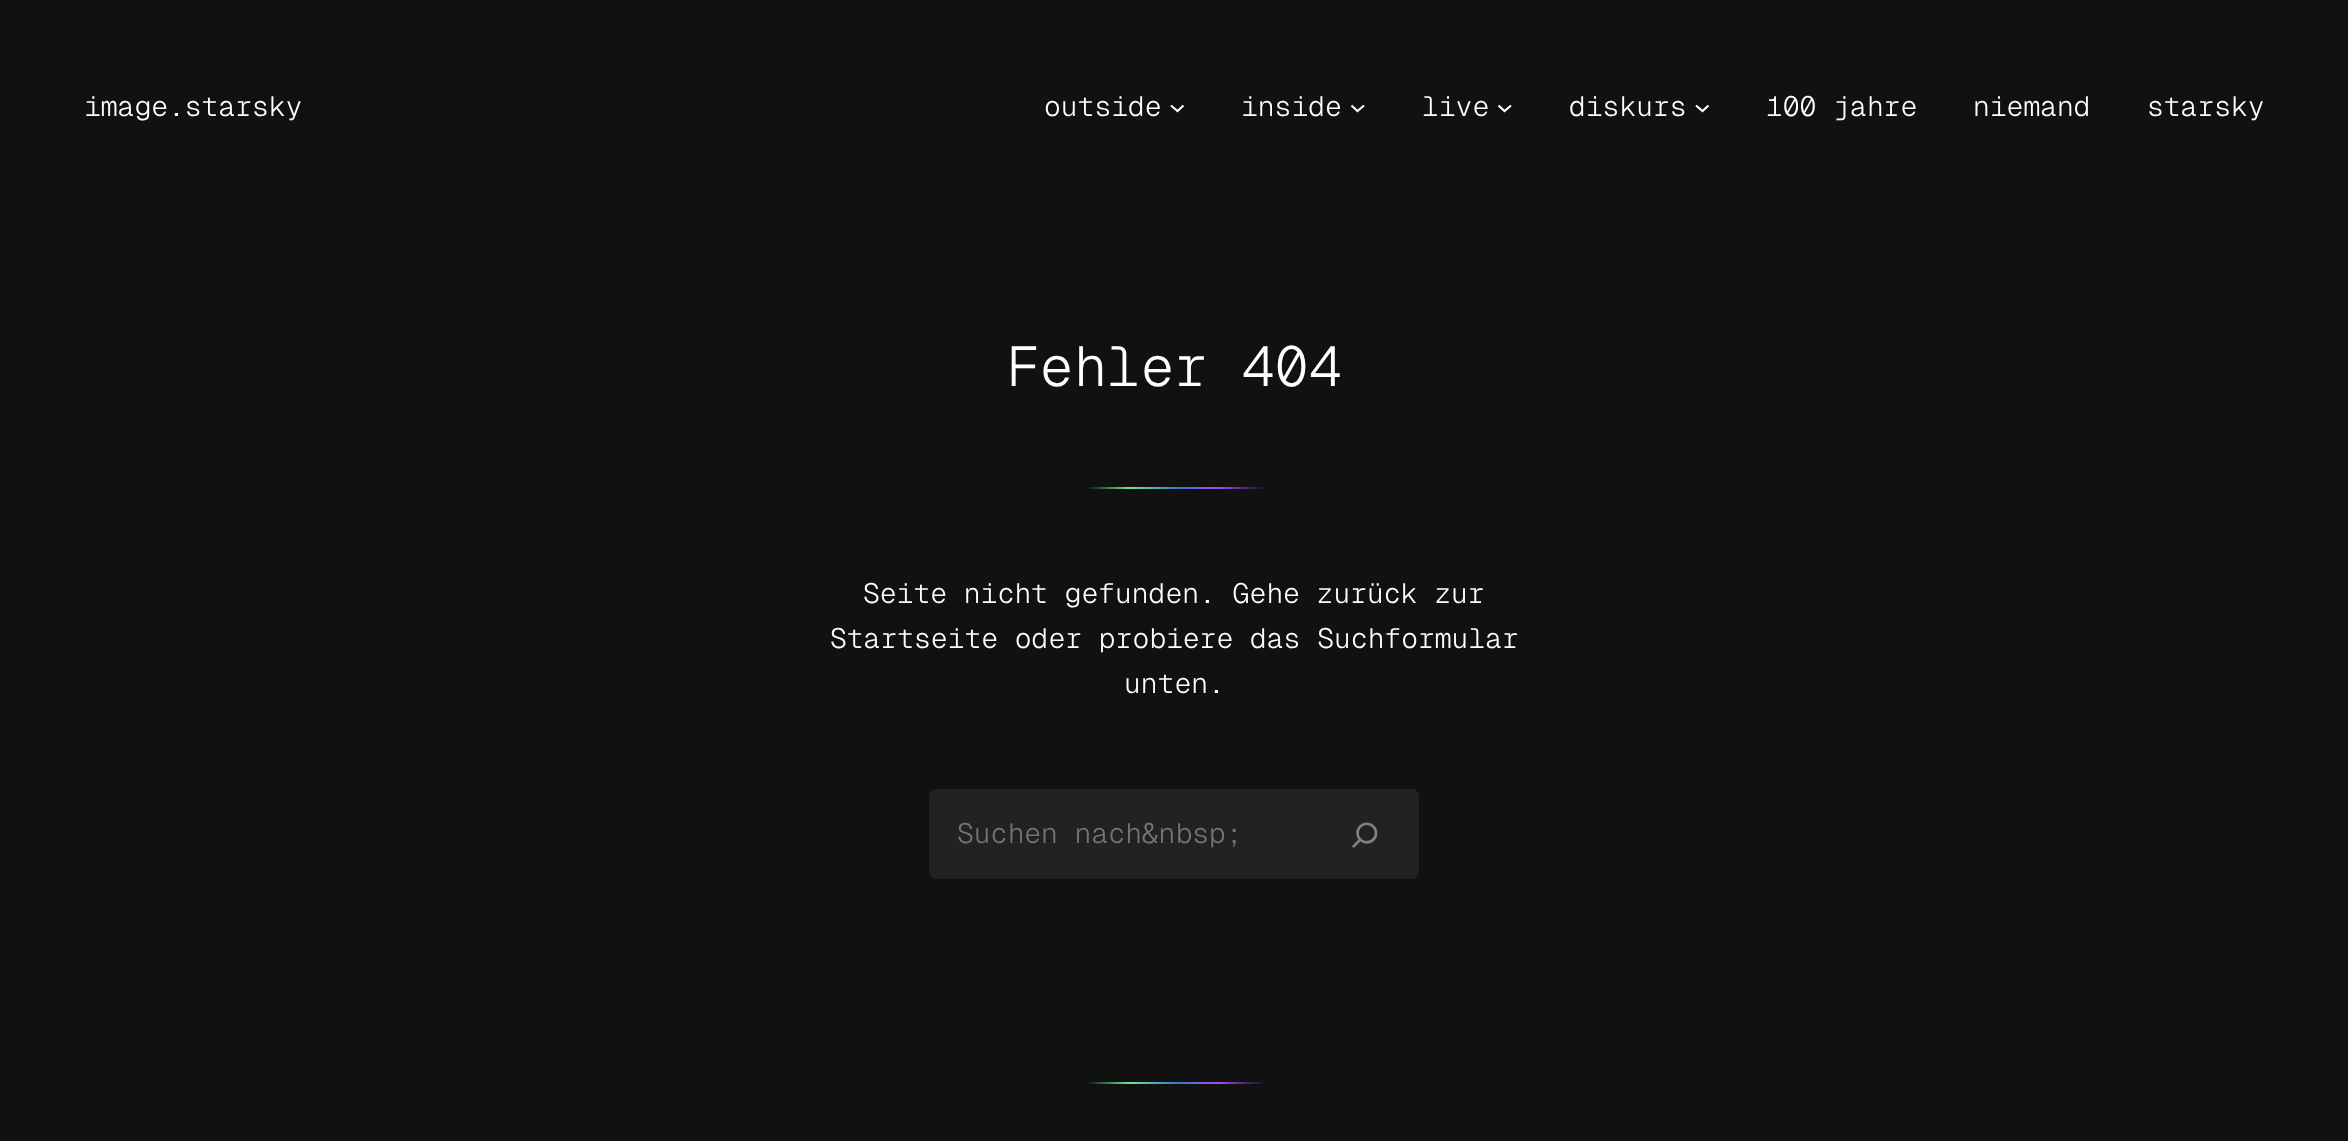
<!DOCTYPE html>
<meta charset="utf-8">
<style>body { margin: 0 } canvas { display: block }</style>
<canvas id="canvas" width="2348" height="1141"></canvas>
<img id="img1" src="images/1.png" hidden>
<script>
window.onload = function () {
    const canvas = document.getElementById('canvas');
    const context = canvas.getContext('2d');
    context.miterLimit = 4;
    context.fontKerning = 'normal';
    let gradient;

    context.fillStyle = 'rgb(17, 17, 17)';
    context.fillRect(0, 0, 2348, 1141);
    context.beginPath();
    context.moveTo(1171, 105.5);
    context.lineTo(1177.5, 111);
    context.lineTo(1183.5, 105.5);
    context.strokeStyle = 'rgb(255, 255, 255)';
    context.lineWidth = 2.1;
    context.stroke();
    context.beginPath();
    context.moveTo(1351.5, 105.5);
    context.lineTo(1357.5, 111);
    context.lineTo(1364, 105.5);
    context.stroke();
    context.beginPath();
    context.moveTo(1498.5, 105.5);
    context.lineTo(1504.5, 111);
    context.lineTo(1511, 105.5);
    context.stroke();
    context.beginPath();
    context.moveTo(1696, 105.5);
    context.lineTo(1702.5, 111);
    context.lineTo(1708.5, 105.5);
    context.stroke();
    gradient = context.createLinearGradient(1062, 487, 1286, 487);
    gradient.addColorStop(0.11, 'rgb(17, 17, 17)');
    gradient.addColorStop(0.3, 'rgb(107, 231, 149)');
    gradient.addColorStop(0.51, 'rgb(54, 124, 207)');
    gradient.addColorStop(0.7, 'rgb(167, 70, 246)');
    gradient.addColorStop(0.91, 'rgb(17, 17, 17)');
    context.fillStyle = gradient;
    context.fillRect(1087, 487, 178, 2);
    context.fillStyle = 'rgb(34, 34, 34)';
    context.beginPath();
    context.roundRect(929, 789, 490, 90, 7);
    context.fill();
    context.drawImage(document.getElementById('img1'), 1352, 822, 26, 26);
    gradient = context.createLinearGradient(1062, 1082, 1286, 1082);
    gradient.addColorStop(0.11, 'rgb(17, 17, 17)');
    gradient.addColorStop(0.3, 'rgb(107, 231, 149)');
    gradient.addColorStop(0.51, 'rgb(54, 124, 207)');
    gradient.addColorStop(0.7, 'rgb(167, 70, 246)');
    gradient.addColorStop(0.91, 'rgb(17, 17, 17)');
    context.fillStyle = gradient;
    context.fillRect(1087, 1082, 178, 2);
    context.font = '300 28px Geist Mono';
    context.fillStyle = 'rgb(255, 255, 255)';
    context.fillText('image.starsky', 84, 116);
    context.fillText('outside', 1044, 116);
    context.fillText('inside', 1241, 116);
    context.fillText('live', 1422, 116);
    context.fillText('diskurs', 1569, 116);
    context.fillText('100 jahre', 1766, 116);
    context.fillText('niemand', 1973, 116);
    context.fillText('starsky', 2147, 116);
    context.font = '300 56px Geist Mono';
    context.fillText('Fehler 404', 1006, 386);
    context.font = '300 28px Geist Mono';
    context.fillText('Seite nicht gefunden. Gehe zurück zur', 863, 603);
    context.fillText('Startseite oder probiere das Suchformular', 830, 648);
    context.fillText('unten.', 1124, 693);
    context.fillStyle = 'rgb(117, 117, 117)';
    context.fillText('Suchen nach&nbsp;', 957, 843);
};
</script>
